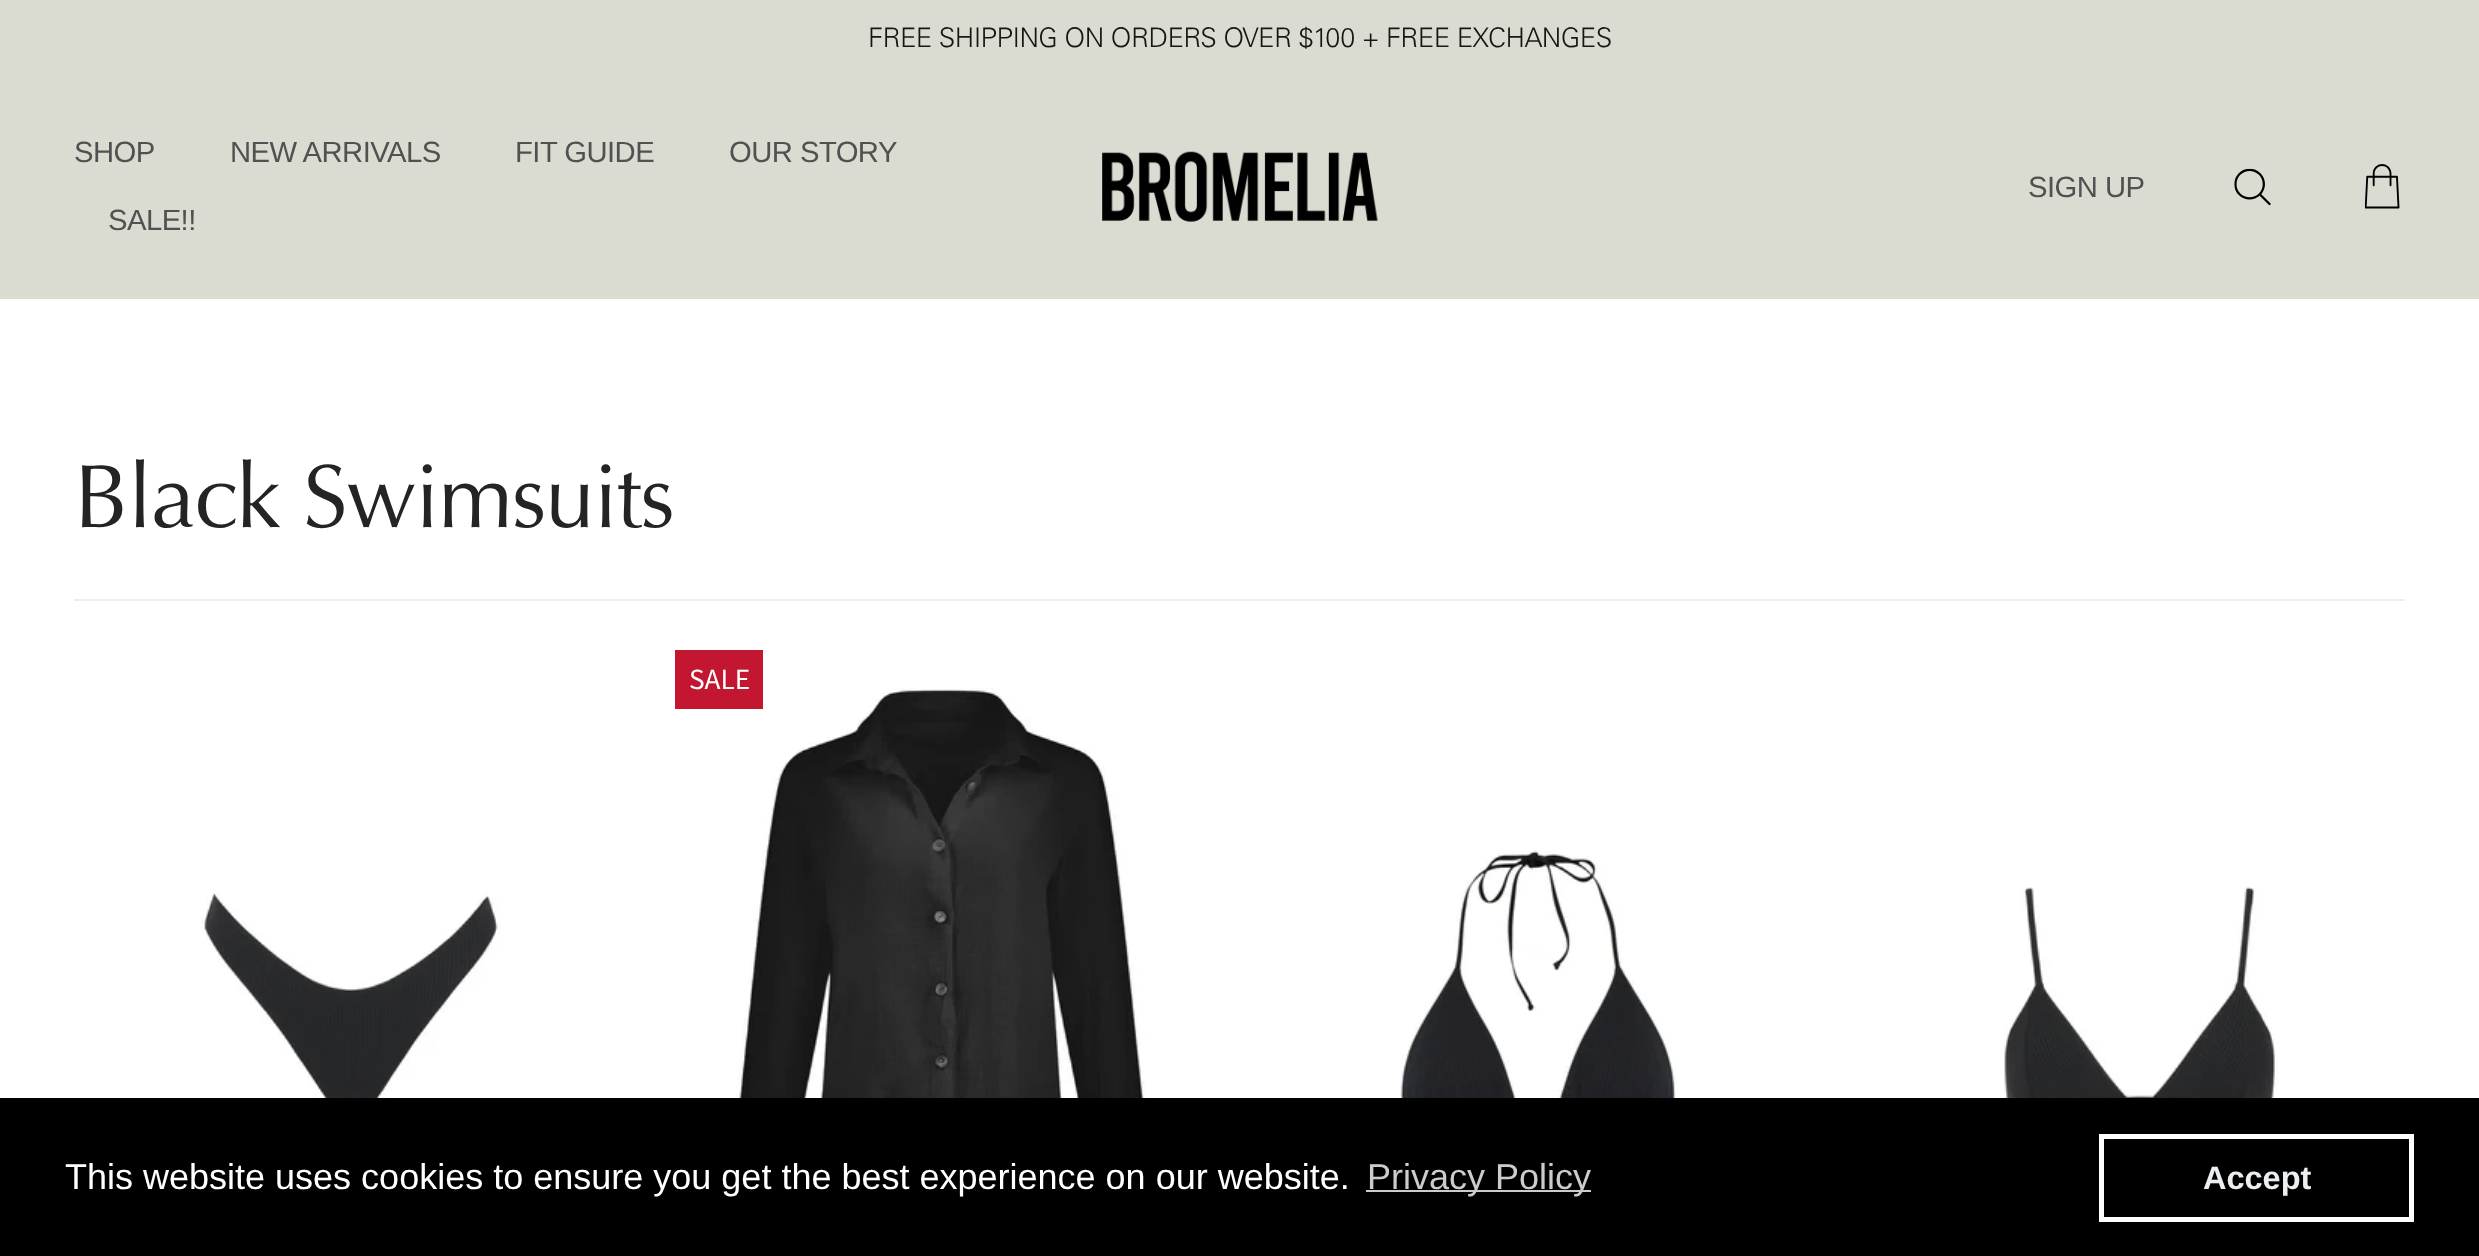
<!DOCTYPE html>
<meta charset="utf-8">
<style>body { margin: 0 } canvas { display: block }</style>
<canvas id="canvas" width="2479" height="1256"></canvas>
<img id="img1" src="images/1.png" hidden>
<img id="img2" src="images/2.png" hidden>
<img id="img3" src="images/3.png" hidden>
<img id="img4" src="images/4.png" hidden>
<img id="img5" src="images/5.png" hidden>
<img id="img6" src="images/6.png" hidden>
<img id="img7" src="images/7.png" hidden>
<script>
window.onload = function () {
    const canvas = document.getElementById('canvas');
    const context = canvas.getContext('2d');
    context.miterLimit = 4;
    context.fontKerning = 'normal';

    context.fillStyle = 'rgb(255, 255, 255)';
    context.fillRect(0, 0, 2479, 1256);
    context.fillStyle = 'rgb(218, 219, 209)';
    context.fillRect(0, 0, 2479, 299);
    context.drawImage(document.getElementById('img1'), 1102, 151, 276, 71);
    context.drawImage(document.getElementById('img2'), 2234, 168, 37, 38);
    context.drawImage(document.getElementById('img3'), 2364, 164, 36, 45);
    context.fillStyle = 'rgb(238, 238, 238)';
    context.fillRect(74, 599, 2331, 2);
    context.drawImage(document.getElementById('img4'), 725, 688, 434, 410);
    context.fillStyle = 'rgb(195, 22, 49)';
    context.fillRect(675, 650, 88, 59);
    context.drawImage(document.getElementById('img5'), 201, 892, 300, 206);
    context.drawImage(document.getElementById('img6'), 1400, 851, 277, 247);
    context.drawImage(document.getElementById('img7'), 2004, 887, 274, 211);
    context.fillStyle = 'rgb(0, 0, 0)';
    context.fillRect(0, 1098, 2479, 158);
    context.fillStyle = 'rgb(204, 204, 204)';
    context.fillRect(1366, 1190, 225, 2);
    context.strokeStyle = 'rgb(255, 255, 255)';
    context.lineWidth = 5;
    context.strokeRect(2101.5, 1136.5, 310, 83);
    context.letterSpacing = '-0.55px';
    context.font = '300 27px Univers';
    context.fillStyle = 'rgb(22, 22, 22)';
    context.fillText('FREE SHIPPING ON ORDERS OVER $100 + FREE EXCHANGES', 868, 47);
    context.font = '29.25px Liberation Sans';
    context.fillStyle = 'rgb(81, 81, 81)';
    context.fillText('SHOP', 74, 162);
    context.fillText('NEW ARRIVALS', 230, 162);
    context.fillText('FIT GUIDE', 515, 162);
    context.fillText('OUR STORY', 729, 162);
    context.fillText('SALE!!', 108, 230);
    context.fillText('SIGN UP', 2028, 197);
    context.letterSpacing = '-1.6px';
    context.font = '90px Optima';
    context.fillStyle = 'rgb(36, 36, 36)';
    context.fillText('Black Swimsuits', 74, 527);
    context.letterSpacing = '0px';
    context.font = '29.25px Source Sans Pro';
    context.fillStyle = 'rgb(255, 255, 255)';
    context.fillText('SALE', 689, 689);
    context.font = '36px Liberation Sans';
    context.fillText('This website uses cookies to ensure you get the best experience on our website.', 65, 1189);
    context.fillStyle = 'rgb(204, 204, 204)';
    context.fillText('Privacy Policy', 1367, 1189);
    context.font = 'bold 32.5px Liberation Sans';
    context.fillStyle = 'rgb(236, 239, 241)';
    context.fillText('Accept', 2203, 1189);
};
</script>
